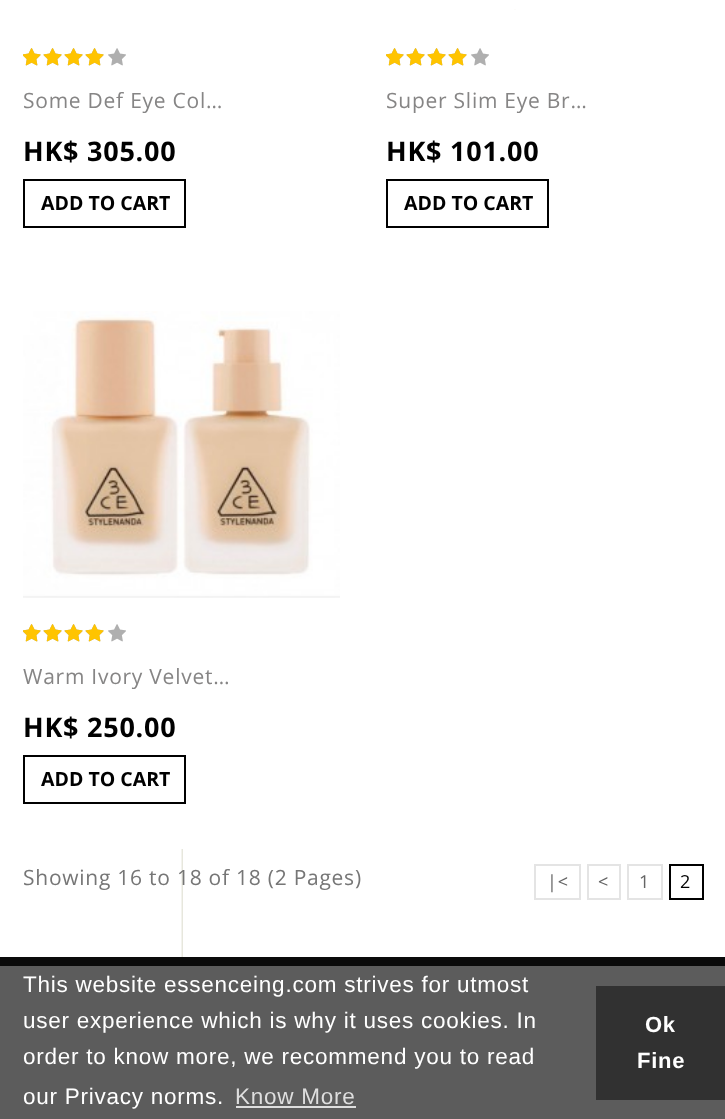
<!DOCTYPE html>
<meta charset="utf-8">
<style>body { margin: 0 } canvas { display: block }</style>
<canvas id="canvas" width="725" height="1119"></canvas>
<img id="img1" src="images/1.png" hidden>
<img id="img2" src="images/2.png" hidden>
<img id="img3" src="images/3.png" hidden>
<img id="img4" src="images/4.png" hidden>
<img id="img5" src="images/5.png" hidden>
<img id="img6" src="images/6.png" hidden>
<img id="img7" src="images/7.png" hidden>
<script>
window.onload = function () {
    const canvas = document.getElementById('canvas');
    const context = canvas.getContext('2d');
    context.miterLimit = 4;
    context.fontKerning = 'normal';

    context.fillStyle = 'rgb(255, 255, 255)';
    context.fillRect(0, 0, 725, 1119);
    context.drawImage(document.getElementById('img1'), 181, 849, 2, 108);
    context.drawImage(document.getElementById('img2'), 23, 48, 18, 18);
    context.drawImage(document.getElementById('img3'), 23, 48, 18, 18);
    context.drawImage(document.getElementById('img4'), 43, 48, 19, 18);
    context.drawImage(document.getElementById('img5'), 43, 48, 19, 18);
    context.drawImage(document.getElementById('img4'), 64, 48, 19, 18);
    context.drawImage(document.getElementById('img5'), 64, 48, 19, 18);
    context.drawImage(document.getElementById('img4'), 85, 48, 19, 18);
    context.drawImage(document.getElementById('img5'), 85, 48, 19, 18);
    context.drawImage(document.getElementById('img6'), 108, 48, 18, 18);
    context.strokeStyle = 'rgb(0, 0, 0)';
    context.lineWidth = 2;
    context.strokeRect(24, 180, 161, 47);
    context.fillStyle = 'rgb(253, 252, 250)';
    context.fillRect(514, 9, 2, 1);
    context.drawImage(document.getElementById('img2'), 386, 48, 18, 18);
    context.drawImage(document.getElementById('img3'), 386, 48, 18, 18);
    context.drawImage(document.getElementById('img4'), 406, 48, 19, 18);
    context.drawImage(document.getElementById('img5'), 406, 48, 19, 18);
    context.drawImage(document.getElementById('img4'), 427, 48, 19, 18);
    context.drawImage(document.getElementById('img5'), 427, 48, 19, 18);
    context.drawImage(document.getElementById('img4'), 448, 48, 19, 18);
    context.drawImage(document.getElementById('img5'), 448, 48, 19, 18);
    context.drawImage(document.getElementById('img6'), 471, 48, 18, 18);
    context.strokeRect(387, 180, 161, 47);
    context.drawImage(document.getElementById('img7'), 23, 311, 317, 287);
    context.drawImage(document.getElementById('img2'), 23, 624, 18, 18);
    context.drawImage(document.getElementById('img3'), 23, 624, 18, 18);
    context.drawImage(document.getElementById('img4'), 43, 624, 19, 18);
    context.drawImage(document.getElementById('img5'), 43, 624, 19, 18);
    context.drawImage(document.getElementById('img4'), 64, 624, 19, 18);
    context.drawImage(document.getElementById('img5'), 64, 624, 19, 18);
    context.drawImage(document.getElementById('img4'), 85, 624, 19, 18);
    context.drawImage(document.getElementById('img5'), 85, 624, 19, 18);
    context.drawImage(document.getElementById('img6'), 108, 624, 18, 18);
    context.strokeRect(24, 756, 161, 47);
    context.strokeStyle = 'rgb(228, 228, 228)';
    context.strokeRect(535, 865, 45, 34);
    context.strokeRect(588, 865, 32, 34);
    context.strokeRect(628, 865, 34, 34);
    context.strokeStyle = 'rgb(0, 0, 0)';
    context.strokeRect(670, 865, 33, 34);
    context.fillStyle = 'rgb(10, 10, 10)';
    context.fillRect(0, 957, 725, 9);
    context.fillStyle = 'rgb(92, 92, 92)';
    context.fillRect(0, 966, 725, 153);
    context.fillStyle = 'rgb(222, 222, 222)';
    context.fillRect(236, 1106, 120, 2);
    context.fillStyle = 'rgb(49, 49, 49)';
    context.fillRect(596, 986, 129, 114);
    context.letterSpacing = '0.75px';
    context.font = '21px Open Sans';
    context.fillStyle = 'rgb(134, 133, 133)';
    context.fillText('Some Def Eye Col…', 23, 108);
    context.font = 'bold 27px Open Sans';
    context.fillStyle = 'rgb(0, 0, 0)';
    context.fillText('HK$ 305.00', 23, 161);
    context.letterSpacing = '0px';
    context.font = 'bold 19.5px Open Sans';
    context.fillText('ADD TO CART', 41, 210);
    context.letterSpacing = '0.75px';
    context.font = '21px Open Sans';
    context.fillStyle = 'rgb(134, 133, 133)';
    context.fillText('Super Slim Eye Br…', 386, 108);
    context.font = 'bold 27px Open Sans';
    context.fillStyle = 'rgb(0, 0, 0)';
    context.fillText('HK$ 101.00', 386, 161);
    context.letterSpacing = '0px';
    context.font = 'bold 19.5px Open Sans';
    context.fillText('ADD TO CART', 404, 210);
    context.letterSpacing = '0.75px';
    context.font = '21px Open Sans';
    context.fillStyle = 'rgb(134, 133, 133)';
    context.fillText('Warm Ivory Velvet…', 23, 684);
    context.font = 'bold 27px Open Sans';
    context.fillStyle = 'rgb(0, 0, 0)';
    context.fillText('HK$ 250.00', 23, 737);
    context.letterSpacing = '0px';
    context.font = 'bold 19.5px Open Sans';
    context.fillText('ADD TO CART', 41, 786);
    context.letterSpacing = '0.75px';
    context.font = '21px Open Sans';
    context.fillStyle = 'rgb(118, 118, 118)';
    context.fillText('Showing 16 to 18 of 18 (2 Pages)', 23, 885);
    context.font = '18px Open Sans';
    context.fillStyle = 'rgb(101, 101, 101)';
    context.fillText('|<', 547, 888);
    context.fillText('<', 598, 888);
    context.fillText('1', 639, 888);
    context.fillStyle = 'rgb(0, 0, 0)';
    context.fillText('2', 680, 888);
    context.font = '22.5px Liberation Sans';
    context.fillStyle = 'rgb(255, 255, 255)';
    context.fillText('This website essenceing.com strives for utmost', 23, 992);
    context.fillText('user experience which is why it uses cookies. In', 23, 1028);
    context.fillText('order to know more, we recommend you to read', 23, 1064);
    context.fillText('our Privacy norms.', 23, 1104);
    context.fillStyle = 'rgb(222, 222, 222)';
    context.fillText('Know More', 235, 1104);
    context.font = 'bold 22px Liberation Sans';
    context.fillStyle = 'rgb(255, 255, 255)';
    context.fillText('Ok', 645, 1032);
    context.fillText('Fine', 637, 1068);
};
</script>
